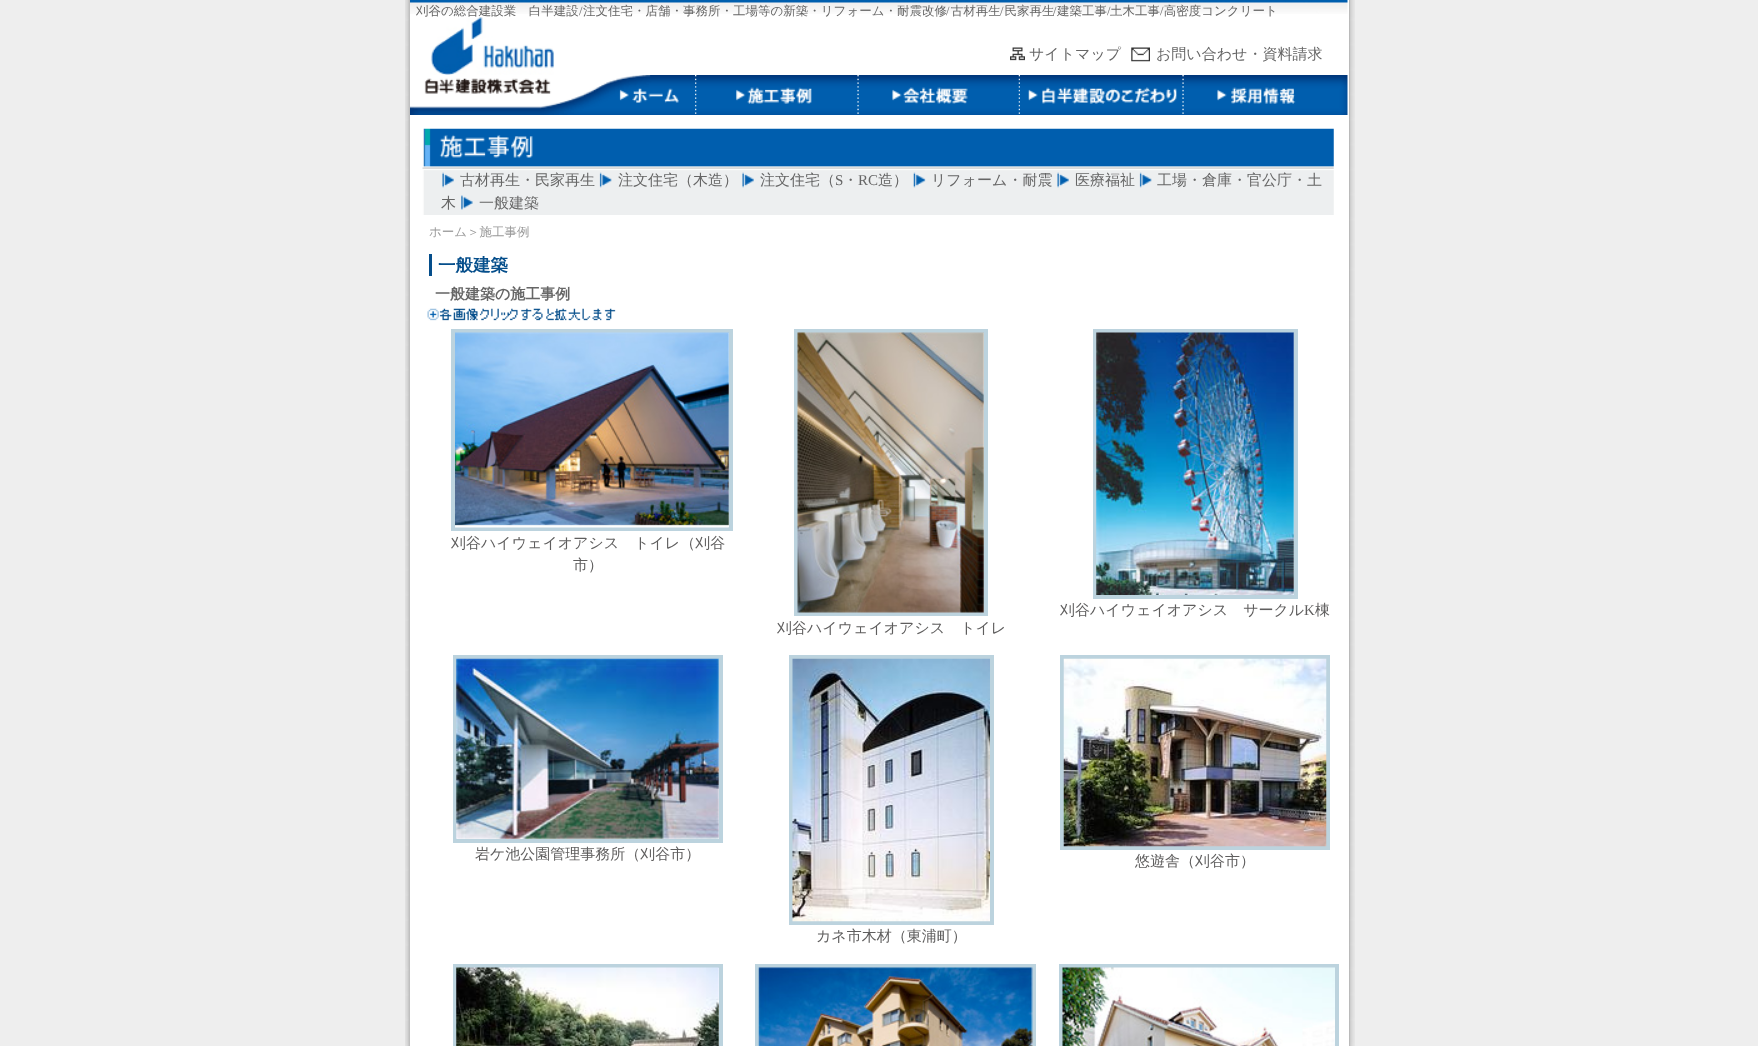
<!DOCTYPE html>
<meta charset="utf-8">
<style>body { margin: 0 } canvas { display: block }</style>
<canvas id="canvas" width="1758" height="1046"></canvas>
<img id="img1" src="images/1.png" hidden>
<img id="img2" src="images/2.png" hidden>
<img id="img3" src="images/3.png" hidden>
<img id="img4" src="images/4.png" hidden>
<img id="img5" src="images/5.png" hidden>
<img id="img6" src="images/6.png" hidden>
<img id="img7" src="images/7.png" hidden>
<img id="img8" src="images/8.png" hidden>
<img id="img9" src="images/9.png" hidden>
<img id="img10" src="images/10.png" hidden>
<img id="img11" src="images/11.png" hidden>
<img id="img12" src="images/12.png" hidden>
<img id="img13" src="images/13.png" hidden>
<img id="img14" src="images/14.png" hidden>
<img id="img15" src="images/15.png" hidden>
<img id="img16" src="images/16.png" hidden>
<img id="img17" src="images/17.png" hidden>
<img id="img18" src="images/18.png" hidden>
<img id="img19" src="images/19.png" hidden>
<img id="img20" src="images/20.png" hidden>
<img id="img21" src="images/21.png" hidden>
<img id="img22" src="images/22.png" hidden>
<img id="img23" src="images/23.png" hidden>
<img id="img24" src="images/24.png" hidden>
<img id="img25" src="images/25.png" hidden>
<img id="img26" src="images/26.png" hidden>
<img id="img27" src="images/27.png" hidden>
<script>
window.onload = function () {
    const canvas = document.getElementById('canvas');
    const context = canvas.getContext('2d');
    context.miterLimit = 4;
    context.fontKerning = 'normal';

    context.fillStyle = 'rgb(238, 238, 238)';
    context.fillRect(0, 0, 1758, 1046);
    context.drawImage(document.getElementById('img1'), 405, 0, 950, 1046);
    context.fillStyle = 'rgb(255, 255, 255)';
    context.fillRect(410, 0, 939, 1046);
    context.drawImage(document.getElementById('img2'), 410, 0, 938, 14);
    context.drawImage(document.getElementById('img3'), 430, 17, 124, 58);
    context.drawImage(document.getElementById('img4'), 1010, 47, 15, 14);
    context.drawImage(document.getElementById('img5'), 1131, 47, 19, 15);
    context.drawImage(document.getElementById('img6'), 410, 75, 938, 40);
    context.drawImage(document.getElementById('img7'), 694, 75, 1, 39);
    context.drawImage(document.getElementById('img8'), 695, 75, 163, 39);
    context.drawImage(document.getElementById('img9'), 857, 75, 163, 39);
    context.drawImage(document.getElementById('img10'), 1020, 75, 163, 39);
    context.drawImage(document.getElementById('img11'), 1182, 75, 1, 39);
    context.drawImage(document.getElementById('img12'), 422, 128, 912, 87);
    context.drawImage(document.getElementById('img13'), 442, 172, 12, 16);
    context.drawImage(document.getElementById('img14'), 599, 172, 13, 16);
    context.drawImage(document.getElementById('img13'), 742, 172, 12, 16);
    context.drawImage(document.getElementById('img15'), 913, 172, 13, 16);
    context.drawImage(document.getElementById('img13'), 1057, 172, 12, 16);
    context.drawImage(document.getElementById('img16'), 1139, 172, 13, 16);
    context.drawImage(document.getElementById('img17'), 461, 195, 12, 15);
    context.fillStyle = 'rgb(5, 78, 139)';
    context.fillRect(429, 254, 3, 22);
    context.drawImage(document.getElementById('img18'), 427, 308, 189, 13);
    context.strokeStyle = 'rgb(188, 211, 222)';
    context.lineWidth = 4;
    context.strokeRect(453, 331, 278, 198);
    context.drawImage(document.getElementById('img19'), 455, 332, 274, 196);
    context.strokeRect(1095, 331, 201, 266);
    context.drawImage(document.getElementById('img20'), 1096, 332, 198, 263);
    context.strokeRect(796, 331, 190, 283);
    context.drawImage(document.getElementById('img21'), 797, 332, 187, 281);
    context.strokeRect(455, 657, 266, 184);
    context.drawImage(document.getElementById('img22'), 456, 658, 263, 181);
    context.strokeRect(1062, 657, 266, 191);
    context.drawImage(document.getElementById('img23'), 1063, 658, 264, 189);
    context.strokeRect(791, 657, 201, 266);
    context.drawImage(document.getElementById('img24'), 792, 658, 198, 264);
    context.strokeRect(455, 966, 266, 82);
    context.drawImage(document.getElementById('img25'), 456, 967, 263, 79);
    context.strokeRect(757, 966, 277, 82);
    context.drawImage(document.getElementById('img26'), 758, 967, 275, 79);
    context.strokeRect(1061, 966, 276, 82);
    context.drawImage(document.getElementById('img27'), 1062, 967, 273, 79);
    context.font = '500 12.5px WenQuanYi Zen Hei';
    context.fillStyle = 'rgb(102, 102, 102)';
    context.fillText('刈谷の総合建設業　白半建設', 416, 15);
    context.font = '12.5px Liberation Serif';
    context.fillText('/', 579, 15);
    context.font = '500 12.5px WenQuanYi Zen Hei';
    context.fillText('注文住宅・店舗・事務所・工場等の新築・リフォーム・耐震改修 古材再生 民家再生', 583, 15);
    context.font = '12.5px Liberation Serif';
    context.fillText('/', 946, 15);
    context.fillText('/', 1000, 15);
    context.fillText('/', 1053, 15);
    context.font = '500 12.5px WenQuanYi Zen Hei';
    context.fillText('建築工事', 1057, 15);
    context.font = '12.5px Liberation Serif';
    context.fillText('/', 1107, 15);
    context.font = '500 12.5px WenQuanYi Zen Hei';
    context.fillText('土木工事 高密度コンクリート', 1110, 15);
    context.font = '12.5px Liberation Serif';
    context.fillText('/', 1160, 15);
    context.font = '500 15px WenQuanYi Zen Hei';
    context.fillText('サイトマップ', 1029, 59);
    context.fillText('お問い合わせ・資料請求', 1156, 59);
    context.fillText('古材再生・民家再生', 460, 185);
    context.fillText('注文住宅（木造）', 618, 185);
    context.fillText('注文住宅（', 760, 185);
    context.font = '15px Liberation Serif';
    context.fillText('S', 835, 185);
    context.font = '500 15px WenQuanYi Zen Hei';
    context.fillText('・', 843, 185);
    context.font = '15px Liberation Serif';
    context.fillText('RC', 858, 185);
    context.font = '500 15px WenQuanYi Zen Hei';
    context.fillText('造）', 878, 185);
    context.fillText('リフォーム・耐震', 931, 185);
    context.fillText('医療福祉', 1075, 185);
    context.fillText('工場・倉庫・官公庁・土', 1157, 185);
    context.fillText('木', 441, 208);
    context.fillText('一般建築', 479, 208);
    context.font = '500 12.5px WenQuanYi Zen Hei';
    context.fillStyle = 'rgb(153, 153, 153)';
    context.fillText('ホーム＞施工事例', 429, 236);
    context.font = 'bold 17.5px WenQuanYi Zen Hei';
    context.fillStyle = 'rgb(5, 78, 139)';
    context.fillText('一般建築', 438, 271);
    context.font = 'bold 15px WenQuanYi Zen Hei';
    context.fillStyle = 'rgb(102, 102, 102)';
    context.fillText('一般建築の施工事例', 435, 299);
    context.font = '500 15px WenQuanYi Zen Hei';
    context.fillStyle = 'rgb(95, 94, 94)';
    context.fillText('刈谷ハイウェイオアシス　トイレ（刈谷', 451, 548);
    context.fillText('市）', 573, 570);
    context.fillText('刈谷ハイウェイオアシス　サークル', 1060, 615);
    context.font = '15px Liberation Serif';
    context.fillText('K', 1304, 615);
    context.font = '500 15px WenQuanYi Zen Hei';
    context.fillText('棟', 1315, 615);
    context.fillText('刈谷ハイウェイオアシス　トイレ', 777, 633);
    context.fillText('岩ケ池公園管理事務所（刈谷市）', 475, 859);
    context.fillText('悠遊舎（刈谷市）', 1135, 866);
    context.fillText('カネ市木材（東浦町）', 816, 941);
};
</script>
